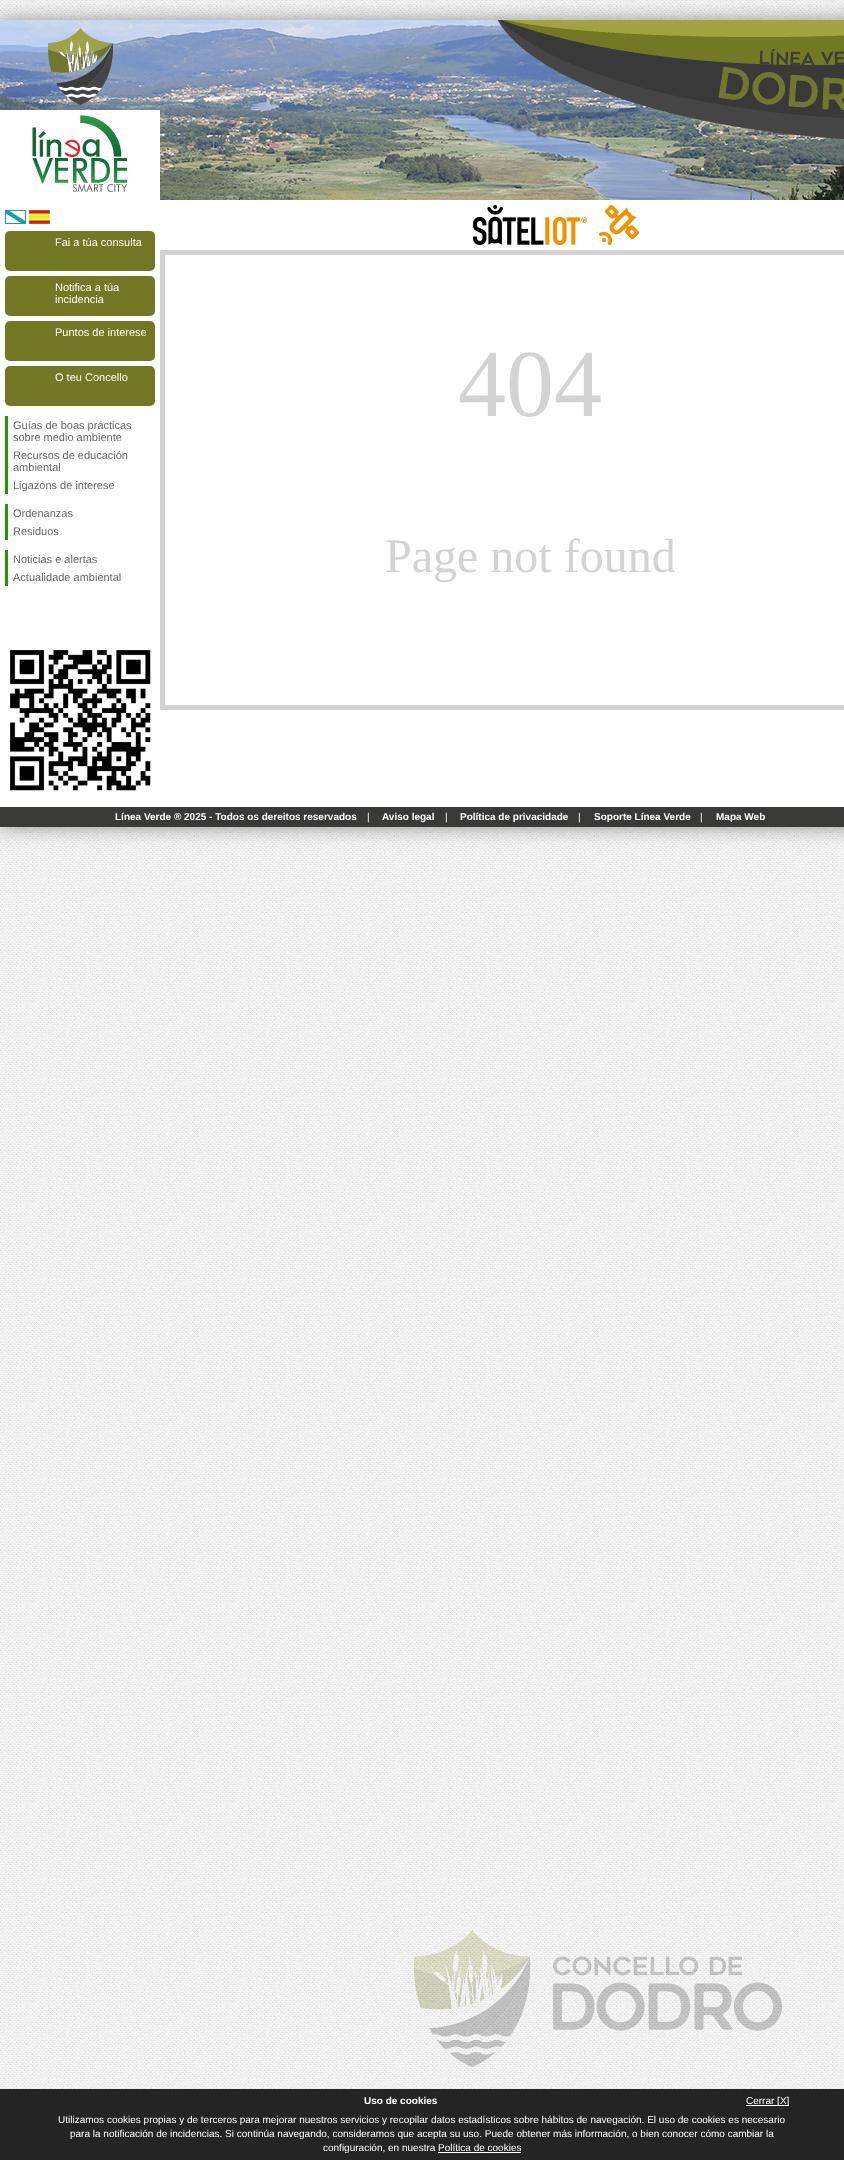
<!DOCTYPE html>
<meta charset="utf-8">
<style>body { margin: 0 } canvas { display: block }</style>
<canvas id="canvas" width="844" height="2160"></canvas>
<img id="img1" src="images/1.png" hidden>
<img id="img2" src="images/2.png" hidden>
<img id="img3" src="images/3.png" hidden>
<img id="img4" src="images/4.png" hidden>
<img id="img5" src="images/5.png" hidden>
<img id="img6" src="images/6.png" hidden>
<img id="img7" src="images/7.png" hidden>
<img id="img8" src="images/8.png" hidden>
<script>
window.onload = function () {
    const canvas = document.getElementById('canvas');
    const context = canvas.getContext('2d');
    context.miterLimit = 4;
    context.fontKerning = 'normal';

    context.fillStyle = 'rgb(255, 255, 255)';
    context.fillRect(0, 0, 844, 2160);
    context.drawImage(document.getElementById('img1'), 0, 0, 844, 2160);
    context.fillStyle = 'rgba(0, 0, 0, 0.4)';
    context.filter = 'blur(10px)';
    context.beginPath();
    context.rect(0, 20, 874, 807);
    context.fill();
    context.filter = 'none';
    context.fillStyle = 'rgb(255, 255, 255)';
    context.fillRect(0, 110, 844, 697);
    context.drawImage(document.getElementById('img2'), 0, 20, 844, 90);
    context.drawImage(document.getElementById('img3'), 32, 115, 96, 77);
    context.drawImage(document.getElementById('img4'), 160, 110, 684, 90);
    context.drawImage(document.getElementById('img5'), 473, 205, 166, 40);
    context.drawImage(document.getElementById('img6'), 5, 210, 21, 14);
    context.drawImage(document.getElementById('img7'), 29, 210, 21, 14);
    context.fillStyle = 'rgb(114, 120, 36)';
    context.beginPath();
    context.roundRect(5, 231, 150, 40, 5);
    context.fill();
    context.beginPath();
    context.roundRect(5, 276, 150, 40, 5);
    context.fill();
    context.beginPath();
    context.roundRect(5, 321, 150, 40, 5);
    context.fill();
    context.beginPath();
    context.roundRect(5, 366, 150, 40, 5);
    context.fill();
    context.fillStyle = 'rgb(37, 150, 3)';
    context.fillRect(5, 416, 3, 78);
    context.fillRect(5, 504, 3, 36);
    context.fillRect(5, 550, 3, 36);
    context.drawImage(document.getElementById('img8'), 10, 650, 141, 141);
    context.strokeStyle = 'rgb(211, 211, 211)';
    context.lineWidth = 5;
    context.strokeRect(162.5, 252.5, 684, 455);
    context.fillStyle = 'rgb(57, 57, 56)';
    context.fillRect(0, 807, 844, 20);
    context.fillStyle = 'rgba(0, 0, 0, 0.85)';
    context.fillRect(0, 2089, 844, 71);
    context.fillStyle = 'rgb(255, 255, 255)';
    context.fillRect(746, 2105, 43, 1);
    context.fillRect(438, 2152, 83, 1);
    context.font = '11px Liberation Sans';
    context.fillText('Fai a túa consulta', 55, 246);
    context.fillText('Notifica a túa', 55, 291);
    context.fillText('incidencia', 55, 303);
    context.fillText('Puntos de interese', 55, 336);
    context.fillText('O teu Concello', 55, 381);
    context.fillStyle = 'rgb(102, 102, 102)';
    context.fillText('Guías de boas prácticas', 13, 429);
    context.fillText('sobre medio ambiente', 13, 441);
    context.fillText('Recursos de educación', 13, 459);
    context.fillText('ambiental', 13, 471);
    context.fillText('Ligazóns de interese', 13, 489);
    context.fillText('Ordenanzas', 13, 517);
    context.fillText('Residuos', 13, 535);
    context.fillText('Noticias e alertas', 13, 563);
    context.fillText('Actualidade ambiental', 13, 581);
    context.font = '96px Liberation Serif';
    context.fillStyle = 'rgb(211, 211, 211)';
    context.fillText('404', 458, 416);
    context.font = '48px Liberation Serif';
    context.fillText('Page not found', 385, 572);
    context.font = 'bold 10px Liberation Sans';
    context.fillStyle = 'rgb(255, 255, 255)';
    context.fillText('Línea Verde ® 2025 - Todos os dereitos reservados', 115, 820);
    context.font = '10px Liberation Sans';
    context.fillText('|', 367, 820);
    context.font = 'bold 10px Liberation Sans';
    context.fillText('Aviso legal', 382, 820);
    context.font = '10px Liberation Sans';
    context.fillText('|', 445, 820);
    context.font = 'bold 10px Liberation Sans';
    context.fillText('Política de privacidade', 460, 820);
    context.font = '10px Liberation Sans';
    context.fillText('|', 578, 820);
    context.font = 'bold 10px Liberation Sans';
    context.fillText('Soporte Línea Verde', 594, 820);
    context.font = '10px Liberation Sans';
    context.fillText('|', 700, 820);
    context.font = 'bold 10px Liberation Sans';
    context.fillText('Mapa Web', 716, 820);
    context.fillText('Uso de cookies', 364, 2104);
    context.font = '10px Liberation Sans';
    context.fillText('Cerrar [X]', 746, 2104);
    context.fillText('Utilizamos cookies propias y de terceros para mejorar nuestros servicios y recopilar datos estadísticos sobre hábitos de navegación. El uso de cookies es necesario', 58, 2123);
    context.fillText('para la notificación de incidencias. Si continúa navegando, consideramos que acepta su uso. Puede obtener más información, o bien conocer cómo cambiar la', 70, 2137);
    context.fillText('configuración, en nuestra Política de cookies', 323, 2151);
};
</script>
